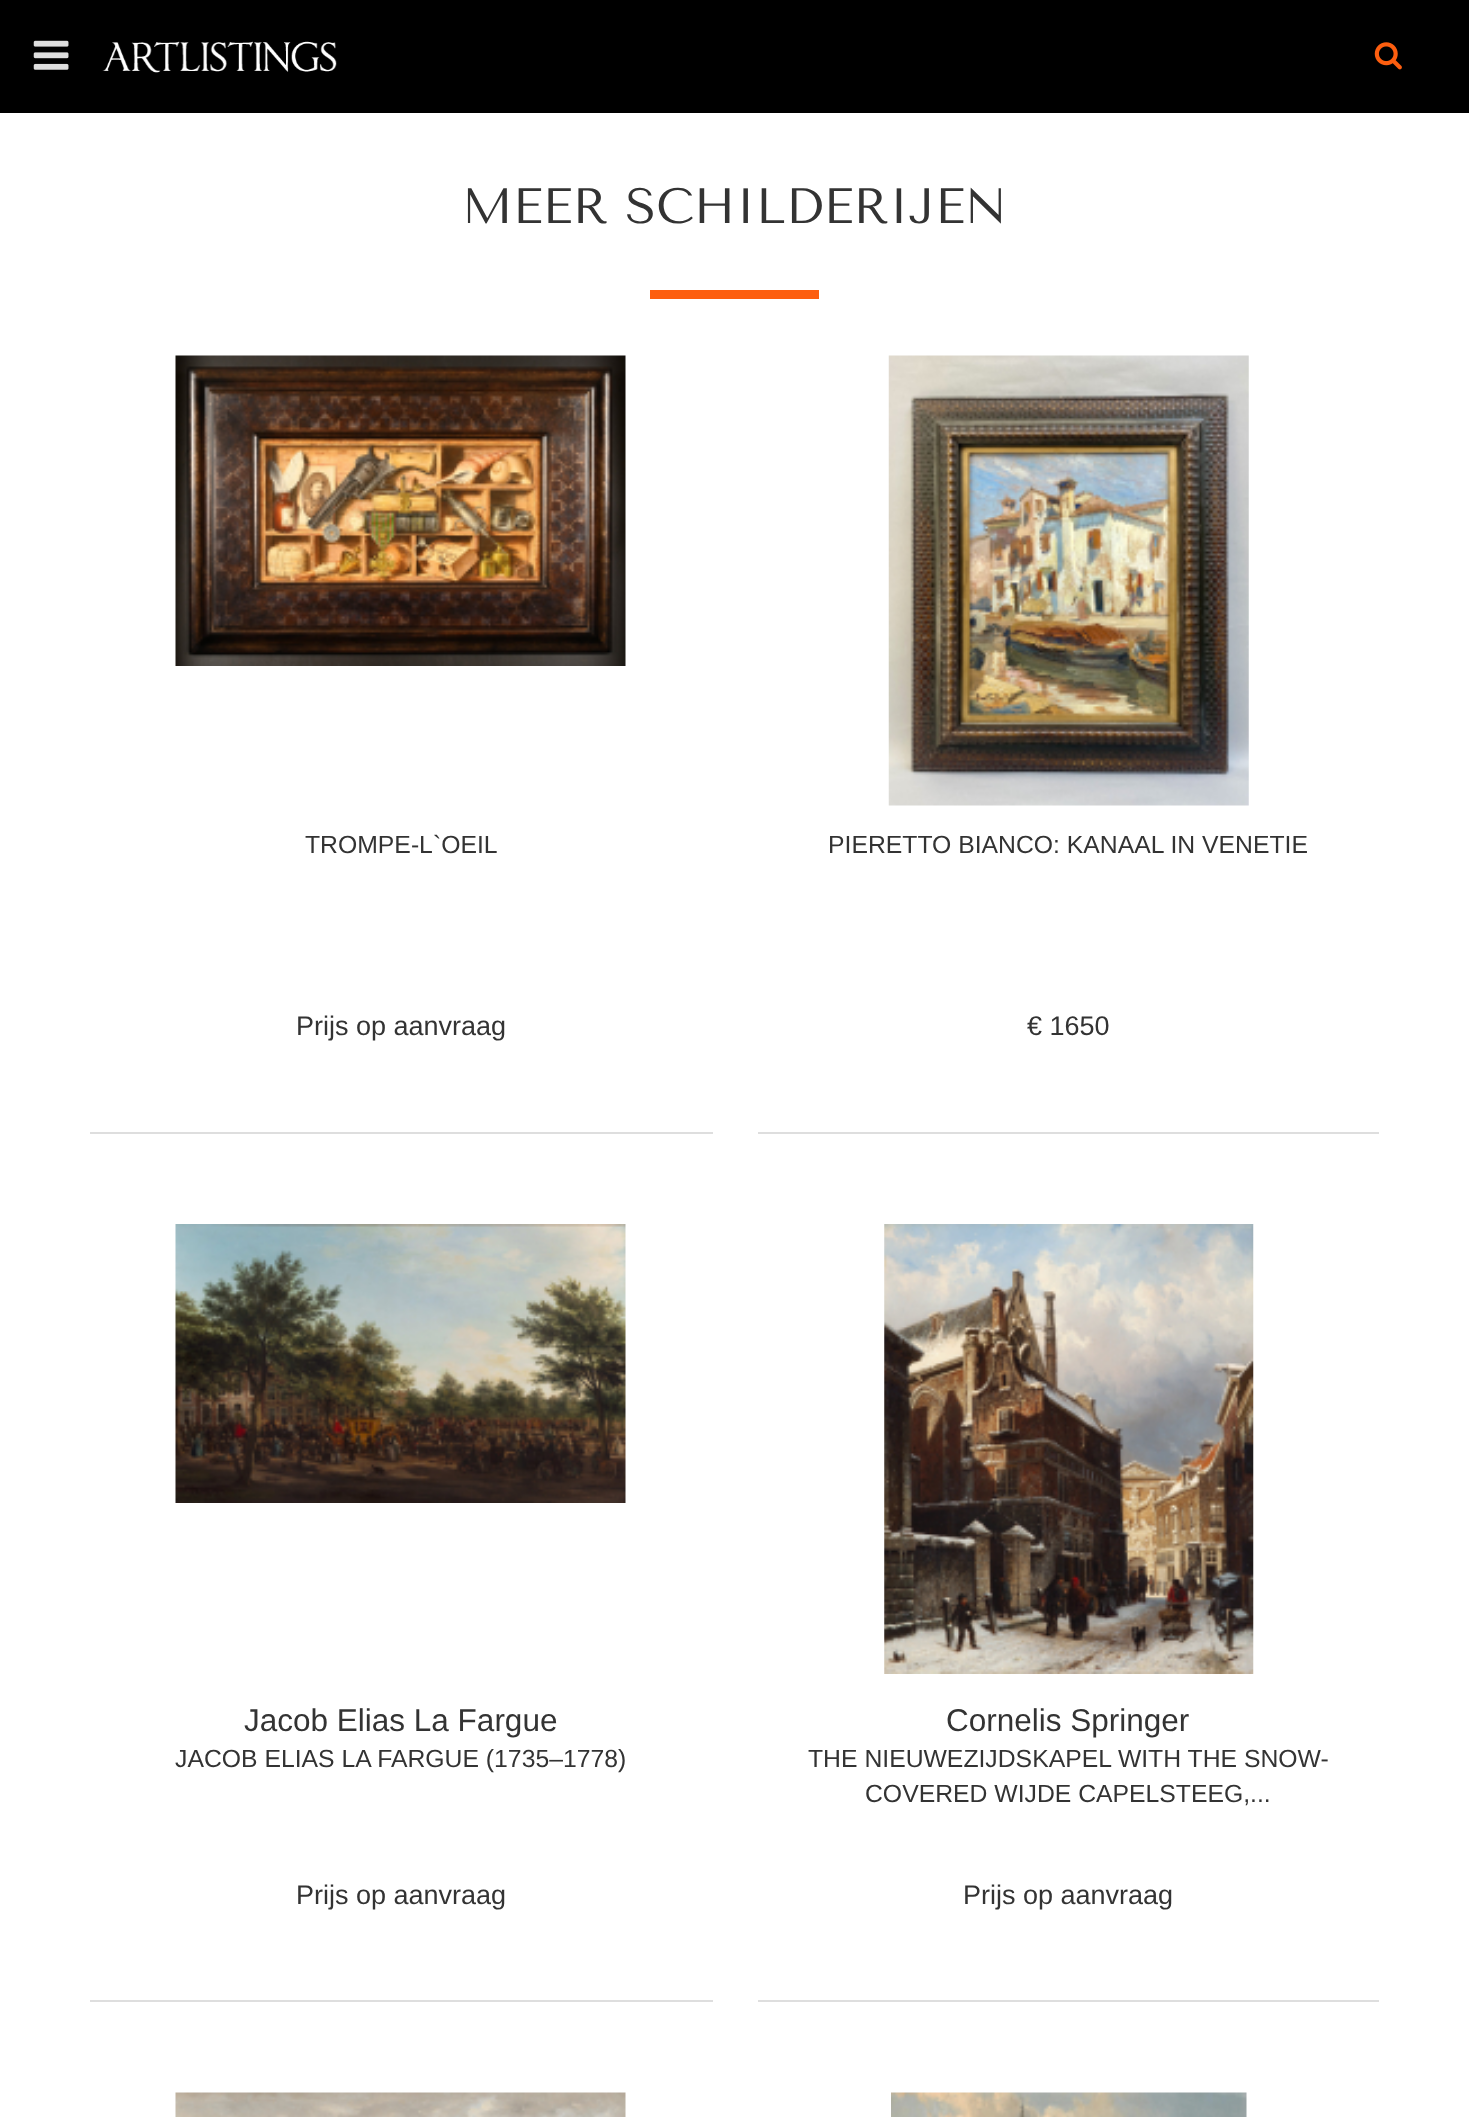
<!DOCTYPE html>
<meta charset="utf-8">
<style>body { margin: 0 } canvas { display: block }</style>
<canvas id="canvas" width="1469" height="2117"></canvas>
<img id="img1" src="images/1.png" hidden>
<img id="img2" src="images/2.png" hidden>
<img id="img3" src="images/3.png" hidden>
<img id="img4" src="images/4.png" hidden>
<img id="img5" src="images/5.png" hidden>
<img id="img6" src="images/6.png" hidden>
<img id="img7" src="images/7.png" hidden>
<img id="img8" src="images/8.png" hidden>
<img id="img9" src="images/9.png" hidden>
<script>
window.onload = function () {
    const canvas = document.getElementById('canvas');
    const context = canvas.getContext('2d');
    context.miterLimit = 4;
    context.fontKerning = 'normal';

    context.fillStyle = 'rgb(255, 255, 255)';
    context.fillRect(0, 0, 1469, 2117);
    context.fillStyle = 'rgb(0, 0, 0)';
    context.fillRect(0, 0, 1469, 113);
    context.drawImage(document.getElementById('img1'), 33, 40, 36, 30);
    context.drawImage(document.getElementById('img2'), 102, 41, 235, 32);
    context.drawImage(document.getElementById('img3'), 1374, 42, 28, 28);
    context.fillStyle = 'rgb(253, 94, 15)';
    context.fillRect(650, 290, 169, 9);
    context.fillStyle = 'rgb(222, 222, 222)';
    context.fillRect(90, 1132, 623, 2);
    context.drawImage(document.getElementById('img4'), 175, 355, 451, 311);
    context.fillRect(758, 1132, 621, 2);
    context.drawImage(document.getElementById('img5'), 888, 355, 361, 451);
    context.fillRect(90, 2000, 623, 2);
    context.drawImage(document.getElementById('img6'), 175, 1224, 451, 279);
    context.fillRect(758, 2000, 621, 2);
    context.drawImage(document.getElementById('img7'), 884, 1224, 370, 450);
    context.drawImage(document.getElementById('img8'), 175, 2092, 451, 25);
    context.drawImage(document.getElementById('img9'), 891, 2092, 356, 25);
    context.font = '49.5px Tenor Sans';
    context.fillStyle = 'rgb(51, 51, 51)';
    context.fillText('MEER SCHILDERIJEN', 462, 223);
    context.font = '24.75px Liberation Sans';
    context.fillText('TROMPE-L`OEIL', 305, 853);
    context.font = '27px Liberation Sans';
    context.fillText('Prijs op aanvraag', 296, 1035);
    context.font = '24.75px Liberation Sans';
    context.fillText('PIERETTO BIANCO: KANAAL IN VENETIE', 828, 853);
    context.font = '27px Liberation Sans';
    context.fillText('€ 1650', 1027, 1035);
    context.font = '31.5px Liberation Sans';
    context.fillText('Jacob Elias La Fargue', 244, 1731);
    context.font = '24.75px Liberation Sans';
    context.fillText('JACOB ELIAS LA FARGUE (1735–1778)', 175, 1767);
    context.font = '27px Liberation Sans';
    context.fillText('Prijs op aanvraag', 296, 1904);
    context.font = '31.5px Liberation Sans';
    context.fillText('Cornelis Springer', 946, 1731);
    context.font = '24.75px Liberation Sans';
    context.fillText('THE NIEUWEZIJDSKAPEL WITH THE SNOW-', 808, 1767);
    context.fillText('COVERED WIJDE CAPELSTEEG,...', 865, 1802);
    context.font = '27px Liberation Sans';
    context.fillText('Prijs op aanvraag', 963, 1904);
};
</script>
